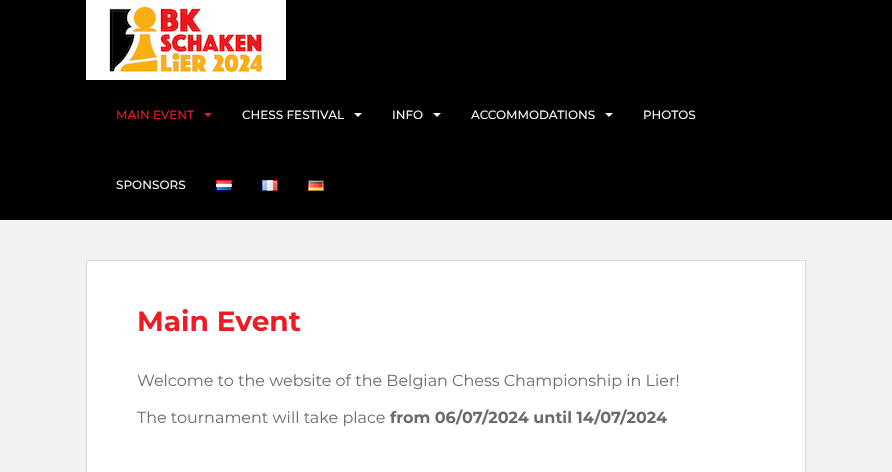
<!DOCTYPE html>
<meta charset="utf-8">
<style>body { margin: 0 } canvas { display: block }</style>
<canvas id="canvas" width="892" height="472"></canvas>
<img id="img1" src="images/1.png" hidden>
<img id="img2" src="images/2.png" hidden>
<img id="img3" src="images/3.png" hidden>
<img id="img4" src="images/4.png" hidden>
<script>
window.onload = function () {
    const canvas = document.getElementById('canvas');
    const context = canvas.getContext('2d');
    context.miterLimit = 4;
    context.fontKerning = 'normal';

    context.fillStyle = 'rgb(242, 242, 242)';
    context.fillRect(0, 0, 892, 472);
    context.fillStyle = 'rgb(0, 0, 0)';
    context.fillRect(0, 0, 892, 220);
    context.drawImage(document.getElementById('img1'), 86, 0, 200, 80);
    context.fillStyle = 'rgb(237, 27, 36)';
    context.beginPath();
    context.moveTo(204, 113);
    context.lineTo(212, 113);
    context.lineTo(208, 117);
    context.closePath();
    context.fill();
    context.fillStyle = 'rgb(245, 247, 250)';
    context.beginPath();
    context.moveTo(354, 113);
    context.lineTo(362, 113);
    context.lineTo(358, 117);
    context.closePath();
    context.fill();
    context.beginPath();
    context.moveTo(433, 113);
    context.lineTo(441, 113);
    context.lineTo(437, 117);
    context.closePath();
    context.fill();
    context.beginPath();
    context.moveTo(605, 113);
    context.lineTo(613, 113);
    context.lineTo(609, 117);
    context.closePath();
    context.fill();
    context.drawImage(document.getElementById('img2'), 216, 180, 16, 11);
    context.drawImage(document.getElementById('img3'), 262, 180, 16, 11);
    context.drawImage(document.getElementById('img4'), 308, 180, 16, 11);
    context.fillStyle = 'rgb(255, 255, 255)';
    context.beginPath();
    context.rect(86.5, 260.5, 719, 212);
    context.fill();
    context.strokeStyle = 'rgb(218, 218, 218)';
    context.stroke();
    context.font = '500 12px Montserrat';
    context.fillStyle = 'rgb(237, 27, 36)';
    context.fillText('MAIN EVENT', 116, 119);
    context.fillStyle = 'rgb(245, 247, 250)';
    context.fillText('CHESS FESTIVAL', 242, 119);
    context.fillText('INFO', 392, 119);
    context.fillText('ACCOMMODATIONS', 471, 119);
    context.fillText('PHOTOS', 643, 119);
    context.fillText('SPONSORS', 116, 189);
    context.font = 'bold 28px Montserrat';
    context.fillStyle = 'rgb(237, 27, 36)';
    context.fillText('Main Event', 137, 331);
    context.font = '16px Montserrat';
    context.fillStyle = 'rgb(107, 107, 107)';
    context.fillText('Welcome to the website of the Belgian Chess Championship in Lier!', 137, 386);
    context.fillText('The tournament will take place', 137, 423);
    context.font = 'bold 16px Montserrat';
    context.fillText('from 06/07/2024 until 14/07/2024', 390, 423);
};
</script>
